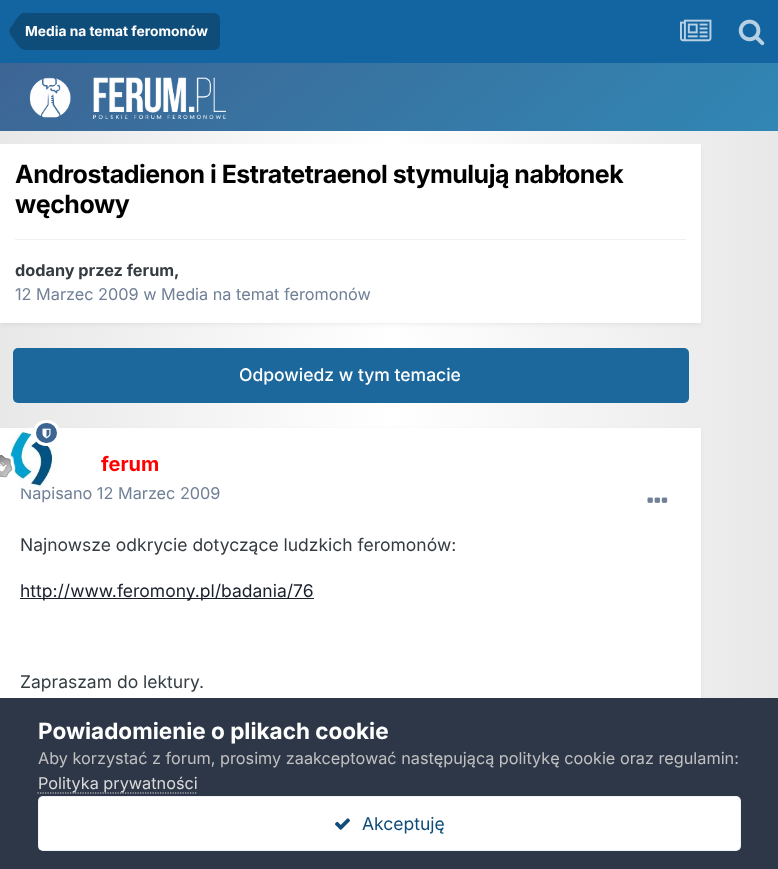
<!DOCTYPE html>
<meta charset="utf-8">
<style>body { margin: 0 } canvas { display: block }</style>
<canvas id="canvas" width="778" height="869"></canvas>
<img id="img1" src="images/1.png" hidden>
<img id="img2" src="images/2.png" hidden>
<img id="img3" src="images/3.png" hidden>
<img id="img4" src="images/7.png" hidden>
<img id="img5" src="images/8.png" hidden>
<img id="img6" src="images/6.png" hidden>
<img id="img7" src="images/5.png" hidden>
<img id="img8" src="images/4.png" hidden>
<script>
window.onload = function () {
    const canvas = document.getElementById('canvas');
    const context = canvas.getContext('2d');
    context.miterLimit = 4;
    context.fontKerning = 'normal';
    let gradient;

    context.fillStyle = 'rgb(255, 255, 255)';
    context.fillRect(0, 0, 778, 869);
    gradient = context.createLinearGradient(0, 826, 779, 826);
    gradient.addColorStop(0, 'rgb(232, 232, 232)');
    gradient.addColorStop(0.5, 'rgb(255, 255, 255)');
    gradient.addColorStop(1, 'rgb(232, 232, 232)');
    context.fillStyle = gradient;
    context.fillRect(0, 131, 778, 567);
    context.fillStyle = 'rgb(18, 101, 161)';
    context.fillRect(0, 0, 778, 63);
    context.fillStyle = 'rgb(14, 76, 121)';
    context.beginPath();
    context.roundRect(25, 13, 195, 37, [0, 6, 6, 0]);
    context.fill();
    context.beginPath();
    context.moveTo(25, 49.5);
    context.bezierCurveTo(19.5, 49.5, 16.5, 43, 14, 39.5);
    context.bezierCurveTo(12, 37, 9.5, 34.5, 9.5, 31);
    context.lineTo(25, 31);
    context.closePath();
    context.moveTo(25, 12.5);
    context.lineTo(25, 31);
    context.lineTo(9.5, 31);
    context.bezierCurveTo(9, 29, 11.5, 26.5, 12.5, 25);
    context.bezierCurveTo(15.5, 21, 19.5, 12.5, 25, 12.5);
    context.closePath();
    context.fill();
    context.drawImage(document.getElementById('img1'), 680, 19, 32, 23);
    context.drawImage(document.getElementById('img2'), 738, 19, 27, 27);
    gradient = context.createLinearGradient(218, -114, 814, 621);
    gradient.addColorStop(0, 'rgb(61, 101, 148)');
    gradient.addColorStop(1, 'rgb(40, 160, 204)');
    context.fillStyle = gradient;
    context.fillRect(0, 63, 778, 68);
    context.drawImage(document.getElementById('img3'), 29, 77, 197, 42);
    context.fillStyle = 'rgba(45, 55, 72, 0.1)';
    context.filter = 'blur(2.5px)';
    context.beginPath();
    context.rect(1, 148, 699, 176);
    context.fill();
    context.filter = 'none';
    context.fillStyle = 'rgb(255, 255, 255)';
    context.fillRect(0, 144, 701, 179);
    context.fillStyle = 'rgb(239, 239, 240)';
    context.fillRect(15, 239, 671, 1);
    context.fillStyle = 'rgb(28, 104, 156)';
    context.beginPath();
    context.roundRect(13, 348, 676, 55, 5);
    context.fill();
    context.fillStyle = 'rgba(45, 55, 72, 0.1)';
    context.filter = 'blur(2.5px)';
    context.beginPath();
    context.rect(1, 431, 699, 375);
    context.fill();
    context.filter = 'none';
    context.fillStyle = 'rgb(255, 255, 255)';
    context.fillRect(0, 428, 701, 270);
    context.drawImage(document.getElementById('img4'), 647, 497, 21, 6);
    context.fillStyle = 'rgb(26, 32, 44)';
    context.fillRect(20, 598, 294, 1);
    context.fillStyle = 'rgb(45, 55, 72)';
    context.fillRect(0, 698, 778, 171);
    context.beginPath();
    context.moveTo(37.5, 793);
    context.lineTo(197.5, 793);
    context.strokeStyle = 'rgb(218, 218, 218)';
    context.lineWidth = 1.2;
    context.setLineDash([1.25, 1.25]);
    context.stroke();
    context.fillStyle = 'rgb(255, 255, 255)';
    context.beginPath();
    context.roundRect(38, 796, 703, 55, 5);
    context.fill();
    context.beginPath();
    context.roundRect(38.5, 796.5, 702, 54, 4.5);
    context.strokeStyle = 'rgba(14, 76, 121, 0.07)';
    context.lineWidth = 1;
    context.setLineDash([]);
    context.stroke();
    context.drawImage(document.getElementById('img5'), 335, 818, 15, 12);
    context.font = 'bold 13.75px Inter';
    context.fillText('Media na temat feromonów', 25, 36);
    context.letterSpacing = '-0.5px';
    context.font = 'bold 25px Inter';
    context.fillStyle = 'rgb(0, 0, 0)';
    context.fillText('Androstadienon i Estratetraenol stymulują nabłonek', 15, 183);
    context.fillText('węchowy', 15, 213);
    context.letterSpacing = '0px';
    context.font = 'bold 16.25px Inter';
    context.fillStyle = 'rgb(53, 60, 65)';
    context.fillText('dodany przez ferum,', 15, 276);
    context.font = '16.25px Inter';
    context.fillStyle = 'rgb(113, 128, 150)';
    context.fillText('12 Marzec 2009 w Media na temat feromonów', 15, 300);
    context.font = '500 17.5px Inter';
    context.fillStyle = 'rgb(255, 255, 255)';
    context.fillText('Odpowiedz w tym temacie', 239, 381);
    context.font = 'bold 20px Inter';
    context.fillStyle = 'rgb(255, 0, 0)';
    context.fillText('ferum', 101, 471);
    context.font = '16.25px Inter';
    context.fillStyle = 'rgb(113, 128, 150)';
    context.fillText('Napisano 12 Marzec 2009', 20, 499);
    context.drawImage(document.getElementById('img6'), 9, 427, 51, 63);
    context.drawImage(document.getElementById('img7'), 0, 455, 16, 23);
    context.fillStyle = 'rgb(61, 101, 148)';
    context.beginPath();
    context.roundRect(34.5, 421.5, 24, 23, 11.5);
    context.fill();
    context.strokeStyle = 'rgb(255, 255, 255)';
    context.lineWidth = 3;
    context.stroke();
    context.drawImage(document.getElementById('img8'), 42, 428, 9, 11);
    context.font = '17.5px Inter';
    context.fillStyle = 'rgb(53, 60, 65)';
    context.fillText('Najnowsze odkrycie dotyczące ludzkich feromonów:', 20, 551);
    context.fillStyle = 'rgb(26, 32, 44)';
    context.fillText('http://www.feromony.pl/badania/76', 20, 597);
    context.fillStyle = 'rgb(53, 60, 65)';
    context.fillText('Zapraszam do lektury.', 20, 688);
    context.font = 'bold 22.5px Inter';
    context.fillStyle = 'rgb(255, 255, 255)';
    context.fillText('Powiadomienie o plikach cookie', 38, 739);
    context.font = '16.25px Inter';
    context.fillStyle = 'rgb(192, 192, 192)';
    context.fillText('Aby korzystać z forum, prosimy zaakceptować następującą politykę cookie oraz regulamin:', 38, 764);
    context.fillStyle = 'rgb(218, 218, 218)';
    context.fillText('Polityka prywatności', 38, 789);
    context.font = '17.5px Inter';
    context.fillStyle = 'rgb(14, 76, 121)';
    context.fillText('Akceptuję', 362, 830);
};
</script>
